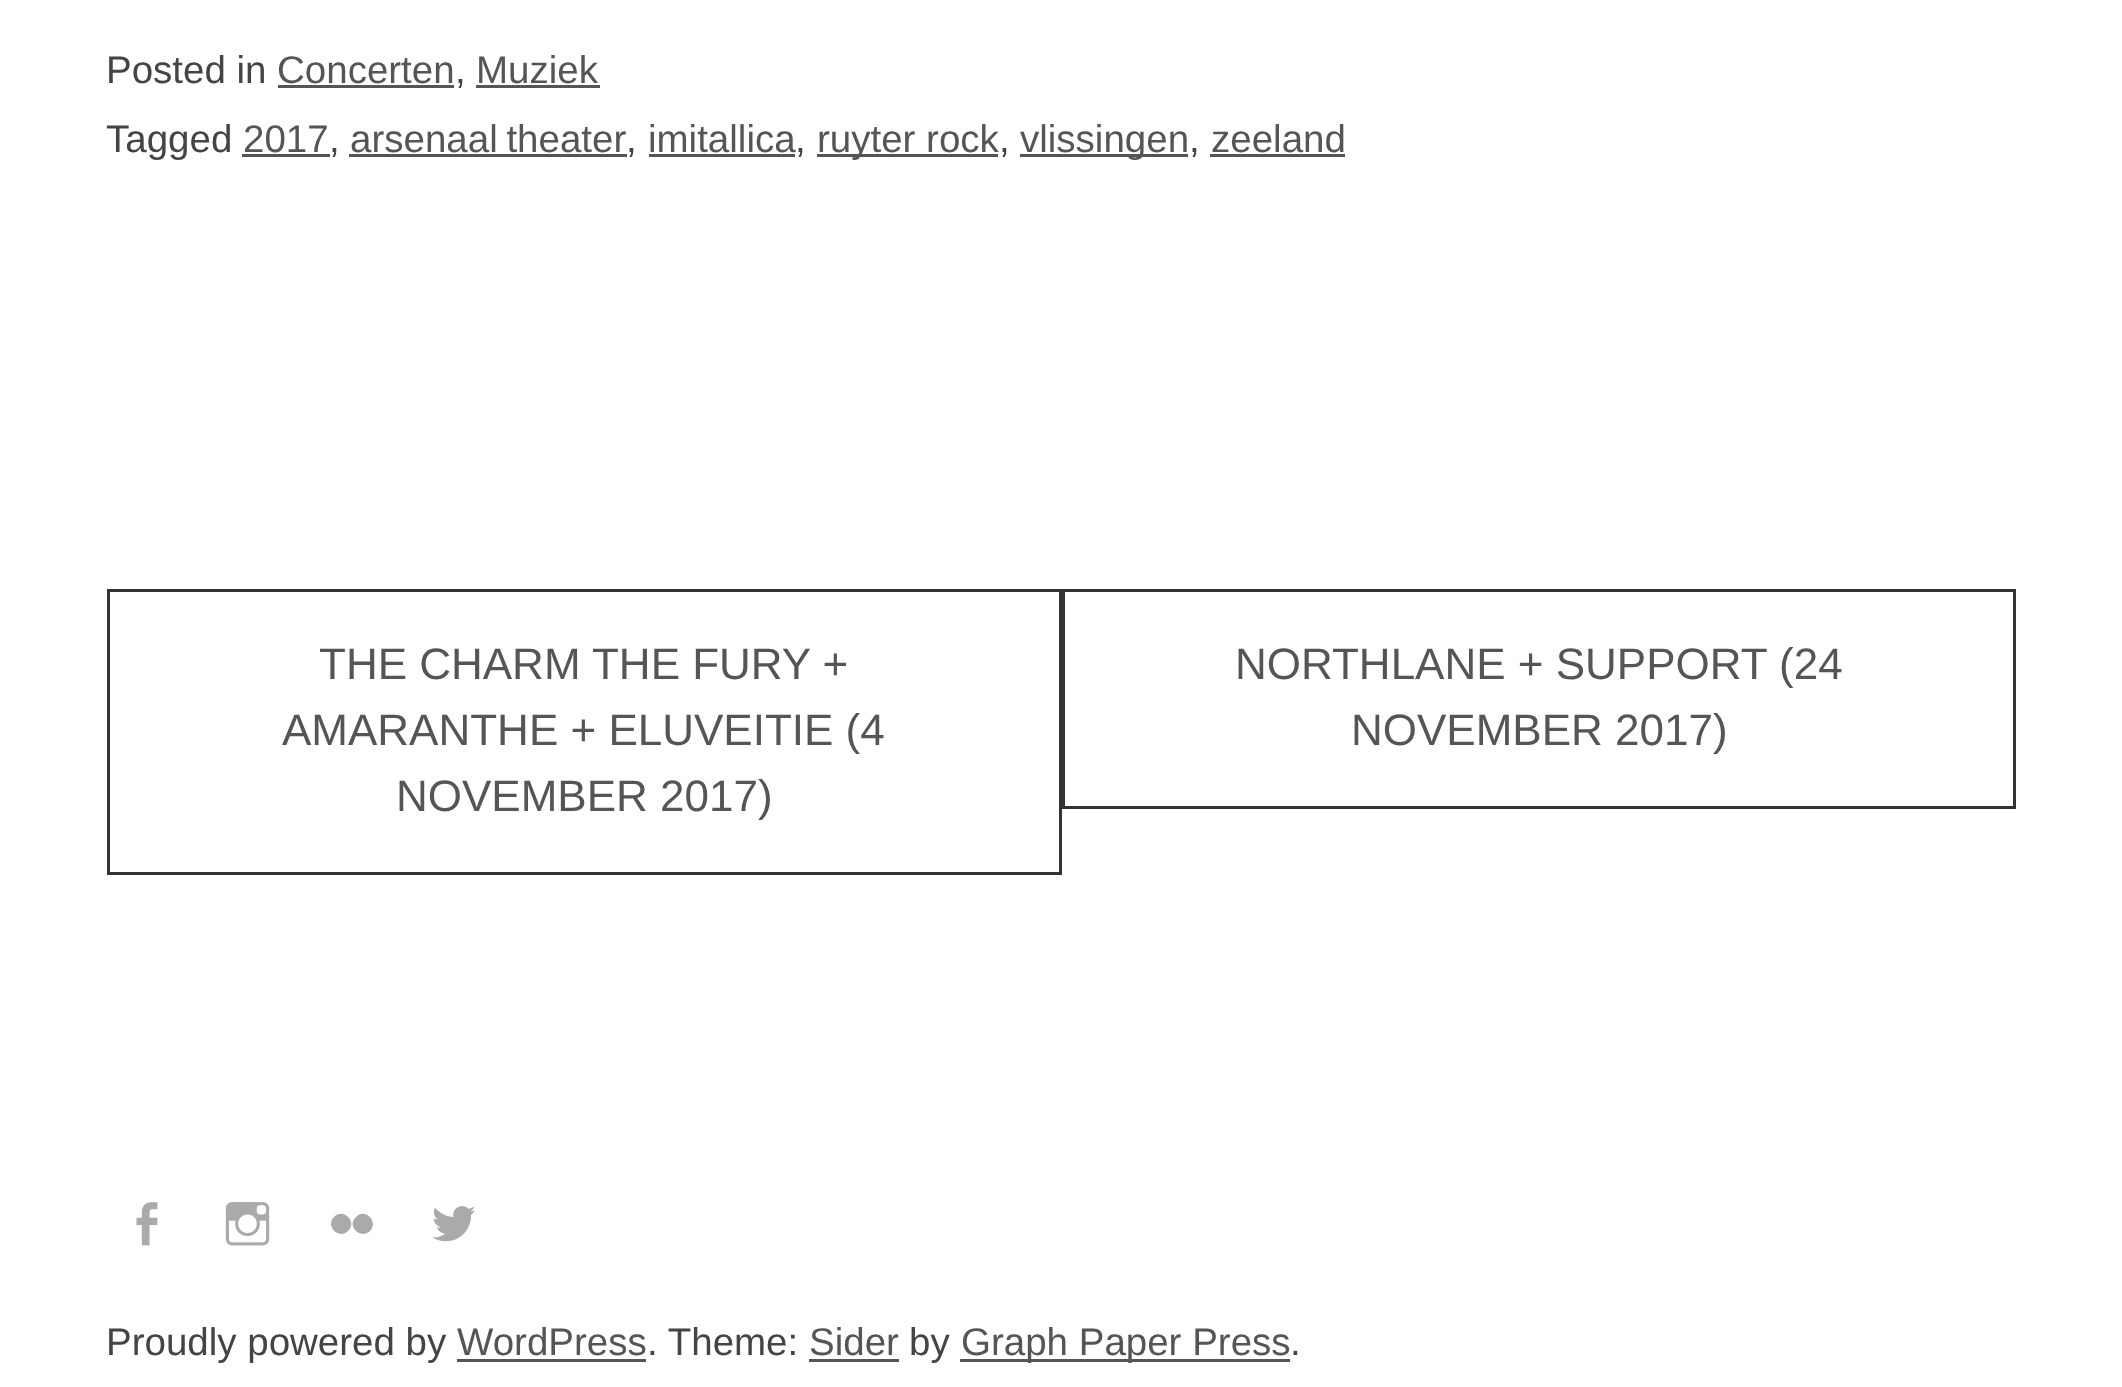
<!DOCTYPE html>
<meta charset="utf-8">
<style>body { margin: 0 } canvas { display: block }</style>
<canvas id="canvas" width="2122" height="1387"></canvas>
<img id="img1" src="images/1.png" hidden>
<img id="img2" src="images/2.png" hidden>
<img id="img3" src="images/3.png" hidden>
<script>
window.onload = function () {
    const canvas = document.getElementById('canvas');
    const context = canvas.getContext('2d');
    context.miterLimit = 4;
    context.fontKerning = 'normal';

    context.fillStyle = 'rgb(255, 255, 255)';
    context.fillRect(0, 0, 2122, 1387);
    context.fillStyle = 'rgb(85, 85, 85)';
    context.fillRect(278, 85, 176, 3);
    context.fillRect(476, 85, 124, 3);
    context.fillRect(242, 154, 88, 3);
    context.fillRect(349, 154, 278, 3);
    context.fillRect(649, 154, 146, 3);
    context.fillRect(817, 154, 181, 3);
    context.fillRect(1020, 154, 168, 3);
    context.fillRect(1210, 154, 135, 3);
    context.strokeStyle = 'rgb(51, 51, 51)';
    context.lineWidth = 3;
    context.strokeRect(108.5, 590.5, 952, 283);
    context.strokeRect(1063.5, 590.5, 951, 217);
    context.drawImage(document.getElementById('img1'), 136, 1202, 22, 44);
    context.drawImage(document.getElementById('img2'), 225, 1202, 45, 44);
    context.fillStyle = 'rgb(170, 170, 170)';
    context.beginPath();
    context.moveTo(356, 1217);
    context.bezierCurveTo(365, 1207, 379, 1222, 370, 1231);
    context.bezierCurveTo(361, 1240, 346, 1226, 356, 1217);
    context.closePath();
    context.moveTo(334, 1217);
    context.bezierCurveTo(343, 1207, 358, 1222, 348, 1231);
    context.bezierCurveTo(339, 1240, 325, 1226, 334, 1217);
    context.closePath();
    context.fill();
    context.drawImage(document.getElementById('img3'), 432, 1206, 44, 36);
    context.fillStyle = 'rgb(85, 85, 85)';
    context.fillRect(457, 1359, 189, 3);
    context.fillRect(809, 1359, 90, 3);
    context.fillRect(960, 1359, 330, 3);
    context.font = '38.5px Liberation Sans';
    context.fillStyle = 'rgb(68, 68, 68)';
    context.fillText('Posted in', 106, 83);
    context.fillStyle = 'rgb(85, 85, 85)';
    context.fillText('Concerten', 277, 83);
    context.fillStyle = 'rgb(68, 68, 68)';
    context.fillText(',', 455, 83);
    context.fillStyle = 'rgb(85, 85, 85)';
    context.fillText('Muziek', 476, 83);
    context.fillStyle = 'rgb(68, 68, 68)';
    context.fillText('Tagged', 106, 152);
    context.fillStyle = 'rgb(85, 85, 85)';
    context.fillText('2017', 243, 152);
    context.fillStyle = 'rgb(68, 68, 68)';
    context.fillText(',', 329, 152);
    context.wordSpacing = '-2px';
    context.fillStyle = 'rgb(85, 85, 85)';
    context.fillText('arsenaal theater', 350, 152);
    context.wordSpacing = '0px';
    context.fillStyle = 'rgb(68, 68, 68)';
    context.fillText(',', 626, 152);
    context.fillStyle = 'rgb(85, 85, 85)';
    context.fillText('imitallica', 648, 152);
    context.fillStyle = 'rgb(68, 68, 68)';
    context.fillText(',', 795, 152);
    context.fillStyle = 'rgb(85, 85, 85)';
    context.fillText('ruyter rock', 817, 152);
    context.fillStyle = 'rgb(68, 68, 68)';
    context.fillText(',', 999, 152);
    context.fillStyle = 'rgb(85, 85, 85)';
    context.fillText('vlissingen', 1020, 152);
    context.fillStyle = 'rgb(68, 68, 68)';
    context.fillText(',', 1189, 152);
    context.fillStyle = 'rgb(85, 85, 85)';
    context.fillText('zeeland', 1211, 152);
    context.font = '44px Liberation Sans';
    context.fillText('THE CHARM THE FURY +', 319, 679);
    context.fillText('AMARANTHE + ELUVEITIE (4', 282, 745);
    context.fillText('NOVEMBER 2017)', 396, 811);
    context.fillText('NORTHLANE + SUPPORT (24', 1235, 679);
    context.fillText('NOVEMBER 2017)', 1351, 745);
    context.font = '38.5px Liberation Sans';
    context.fillStyle = 'rgb(68, 68, 68)';
    context.fillText('Proudly powered by', 106, 1355);
    context.fillStyle = 'rgb(85, 85, 85)';
    context.fillText('WordPress', 457, 1355);
    context.fillStyle = 'rgb(68, 68, 68)';
    context.fillText('. Theme:', 647, 1355);
    context.fillStyle = 'rgb(85, 85, 85)';
    context.fillText('Sider', 809, 1355);
    context.fillStyle = 'rgb(68, 68, 68)';
    context.fillText('by', 909, 1355);
    context.fillStyle = 'rgb(85, 85, 85)';
    context.fillText('Graph Paper Press', 961, 1355);
    context.fillStyle = 'rgb(68, 68, 68)';
    context.fillText('.', 1290, 1355);
};
</script>
